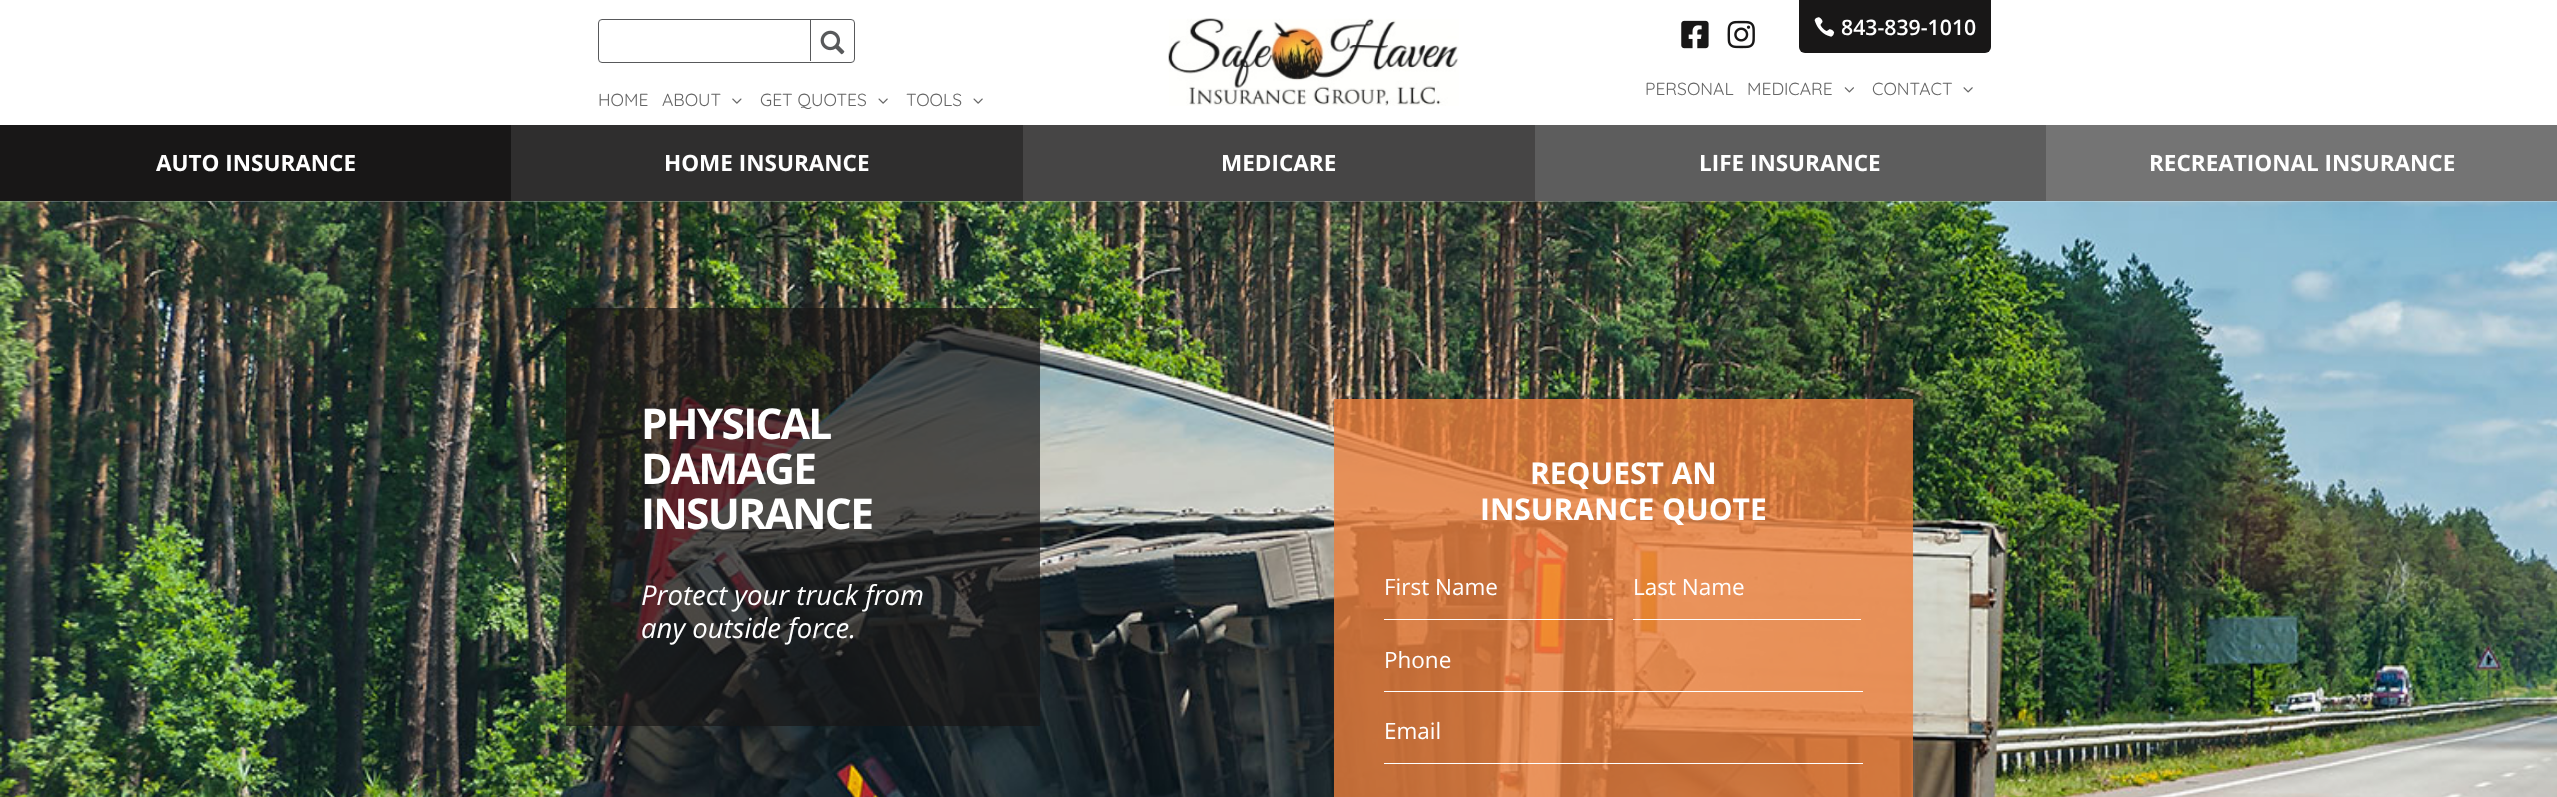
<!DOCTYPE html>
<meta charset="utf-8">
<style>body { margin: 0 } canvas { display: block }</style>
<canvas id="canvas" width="2557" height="797"></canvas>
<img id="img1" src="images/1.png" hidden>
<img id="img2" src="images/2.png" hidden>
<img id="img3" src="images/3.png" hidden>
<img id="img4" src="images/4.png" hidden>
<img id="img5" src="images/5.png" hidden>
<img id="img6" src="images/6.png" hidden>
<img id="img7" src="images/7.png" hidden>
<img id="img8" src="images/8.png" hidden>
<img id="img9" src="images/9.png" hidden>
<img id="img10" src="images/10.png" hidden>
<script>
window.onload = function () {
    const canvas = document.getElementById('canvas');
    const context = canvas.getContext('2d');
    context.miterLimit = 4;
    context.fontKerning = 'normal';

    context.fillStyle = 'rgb(255, 255, 255)';
    context.fillRect(0, 0, 2557, 797);
    context.drawImage(document.getElementById('img1'), 1168, 18, 291, 88);
    context.drawImage(document.getElementById('img2'), 1681, 20, 28, 29);
    context.drawImage(document.getElementById('img3'), 1727, 20, 28, 29);
    context.fillStyle = 'rgb(24, 23, 23)';
    context.beginPath();
    context.roundRect(1799, 0, 192, 53, [0, 0, 6, 6]);
    context.fill();
    context.drawImage(document.getElementById('img4'), 1814, 17, 21, 20);
    context.drawImage(document.getElementById('img5'), 1844, 87, 10, 6);
    context.drawImage(document.getElementById('img6'), 1963, 87, 10, 6);
    context.beginPath();
    context.roundRect(598.5, 19.5, 256, 43, 3.5);
    context.strokeStyle = 'rgb(88, 89, 91)';
    context.stroke();
    context.drawImage(document.getElementById('img7'), 820, 30, 25, 25);
    context.fillStyle = 'rgb(88, 89, 91)';
    context.fillRect(810, 20, 1, 41);
    context.drawImage(document.getElementById('img8'), 732, 98, 10, 6);
    context.drawImage(document.getElementById('img9'), 878, 98, 10, 6);
    context.drawImage(document.getElementById('img9'), 973, 98, 10, 6);
    context.fillStyle = 'rgb(24, 23, 23)';
    context.fillRect(0, 125, 511, 76);
    context.fillStyle = 'rgb(47, 46, 46)';
    context.fillRect(511, 125, 512, 76);
    context.fillStyle = 'rgb(70, 69, 69)';
    context.fillRect(1023, 125, 512, 76);
    context.fillStyle = 'rgb(93, 93, 93)';
    context.fillRect(1535, 125, 511, 76);
    context.fillStyle = 'rgb(116, 116, 116)';
    context.fillRect(2046, 125, 511, 76);
    context.drawImage(document.getElementById('img10'), 0, 201, 2557, 596);
    context.fillStyle = 'rgba(24, 23, 23, 0.7)';
    context.fillRect(566, 308, 474, 418);
    context.fillStyle = 'rgba(236, 127, 60, 0.8)';
    context.fillRect(1334, 399, 579, 398);
    context.fillStyle = 'rgb(255, 255, 255)';
    context.fillRect(1384, 619, 229, 1);
    context.fillRect(1633, 619, 228, 1);
    context.fillRect(1384, 691, 479, 1);
    context.fillRect(1384, 763, 479, 1);
    context.font = '600 21.25px Open Sans';
    context.fillText('843-839-1010', 1841, 35);
    context.font = '17.5px Quicksand';
    context.fillStyle = 'rgb(102, 102, 102)';
    context.fillText('PERSONAL', 1645, 95);
    context.fillText('MEDICARE', 1747, 95);
    context.fillText('CONTACT', 1872, 95);
    context.fillText('HOME', 598, 106);
    context.fillText('ABOUT', 662, 106);
    context.fillText('GET QUOTES', 760, 106);
    context.fillText('TOOLS', 906, 106);
    context.font = 'bold 22.5px Open Sans';
    context.fillStyle = 'rgb(255, 255, 255)';
    context.fillText('AUTO INSURANCE', 156, 171);
    context.fillText('HOME INSURANCE', 664, 171);
    context.fillText('MEDICARE', 1221, 171);
    context.fillText('LIFE INSURANCE', 1699, 171);
    context.fillText('RECREATIONAL INSURANCE', 2149, 171);
    context.letterSpacing = '-1.75px';
    context.font = 'bold 42.5px Open Sans';
    context.fillText('PHYSICAL', 641, 439);
    context.fillText('DAMAGE', 641, 484);
    context.fillText('INSURANCE', 641, 529);
    context.letterSpacing = '0px';
    context.font = 'italic 27.5px Open Sans';
    context.fillText('Protect your truck from', 641, 605);
    context.fillText('any outside force.', 641, 638);
    context.font = 'bold 30px Open Sans';
    context.fillText('REQUEST AN', 1530, 484);
    context.fillText('INSURANCE QUOTE', 1480, 520);
    context.font = '22.5px Open Sans';
    context.fillText('First Name', 1384, 595);
    context.fillText('Last Name', 1633, 595);
    context.fillText('Phone', 1384, 668);
    context.fillText('Email', 1384, 739);
};
</script>
